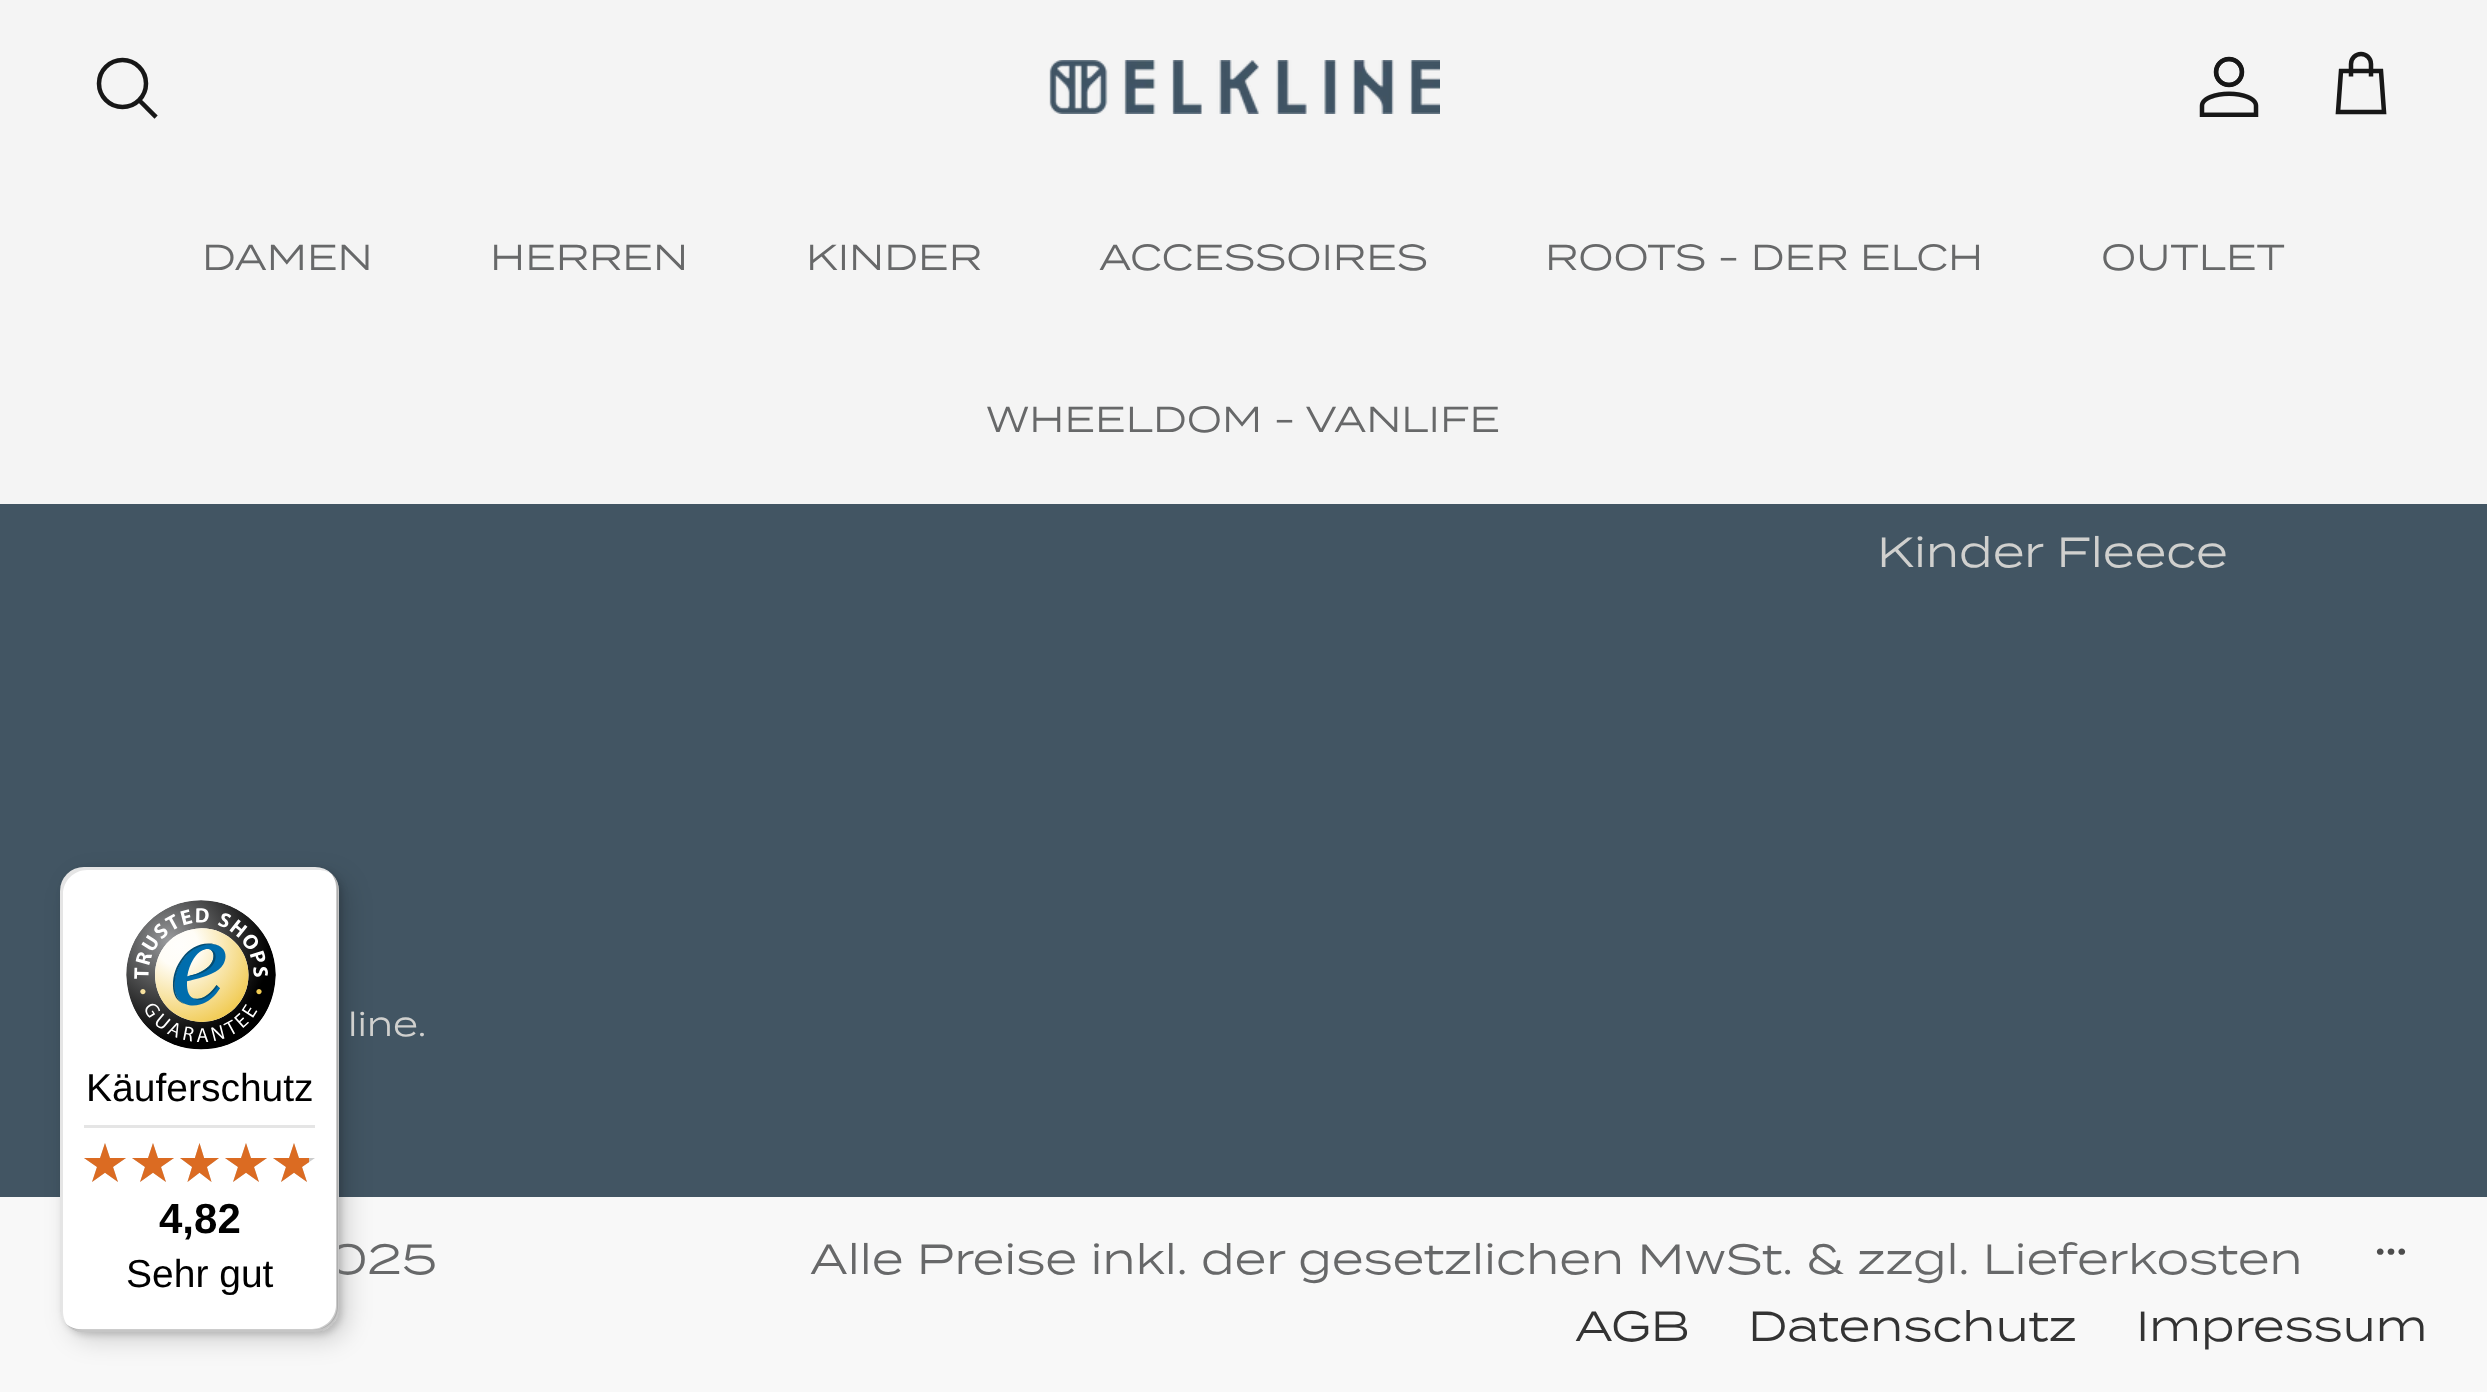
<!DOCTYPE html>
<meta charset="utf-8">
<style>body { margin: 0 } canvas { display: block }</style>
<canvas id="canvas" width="2487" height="1392"></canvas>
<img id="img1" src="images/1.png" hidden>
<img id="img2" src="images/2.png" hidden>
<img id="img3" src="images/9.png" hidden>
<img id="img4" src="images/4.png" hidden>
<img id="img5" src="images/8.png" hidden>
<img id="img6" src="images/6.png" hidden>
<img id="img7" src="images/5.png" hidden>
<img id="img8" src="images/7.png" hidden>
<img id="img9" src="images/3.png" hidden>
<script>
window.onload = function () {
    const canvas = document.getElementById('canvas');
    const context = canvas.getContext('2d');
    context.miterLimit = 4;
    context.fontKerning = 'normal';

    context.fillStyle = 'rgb(66, 85, 99)';
    context.fillRect(0, 0, 2487, 1392);
    context.fillStyle = 'rgb(244, 244, 244)';
    context.fillRect(0, 0, 2487, 504);
    context.beginPath();
    context.arc(122.5, 83.5, 23.5, 0, 2 * Math.PI);
    context.strokeStyle = 'rgb(23, 23, 23)';
    context.lineWidth = 4.5;
    context.stroke();
    context.beginPath();
    context.moveTo(141, 102);
    context.lineTo(154.5, 115.5);
    context.lineCap = 'square';
    context.stroke();
    context.drawImage(document.getElementById('img1'), 1049, 60, 391, 54);
    context.drawImage(document.getElementById('img2'), 2199, 56, 60, 61);
    context.beginPath();
    context.moveTo(2371, 76.5);
    context.lineTo(2371, 64);
    context.bezierCurveTo(2371, 58.5, 2366.5, 54, 2361, 54);
    context.bezierCurveTo(2355.5, 54, 2351, 58.5, 2351, 64);
    context.lineTo(2351, 76.5);
    context.lineCap = 'butt';
    context.stroke();
    context.beginPath();
    context.moveTo(2341, 71);
    context.lineTo(2381, 71);
    context.lineTo(2384, 112);
    context.lineTo(2338, 112);
    context.closePath();
    context.stroke();
    context.fillStyle = 'rgb(248, 248, 248)';
    context.fillRect(0, 1197, 2487, 195);
    context.fillStyle = 'rgba(0, 0, 0, 0.15)';
    context.filter = 'blur(12px)';
    context.beginPath();
    context.roundRect(69, 876, 279, 465, 24);
    context.fill();
    context.filter = 'none';
    context.filter = 'blur(3px)';
    context.beginPath();
    context.roundRect(63, 870, 279, 465, 24);
    context.fill();
    context.filter = 'none';
    context.drawImage(document.getElementById('img3'), 2376, 1248, 30, 7);
    context.font = '36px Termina';
    context.fillStyle = 'rgb(103, 104, 105)';
    context.fillText('DAMEN', 202, 270);
    context.fillText('HERREN', 490, 270);
    context.fillText('KINDER', 806, 270);
    context.fillText('ACCESSOIRES', 1099, 270);
    context.fillText('ROOTS - DER ELCH', 1545, 270);
    context.fillText('OUTLET', 2101, 270);
    context.fillText('WHEELDOM - VANLIFE', 986, 432);
    context.font = '42px Termina';
    context.fillStyle = 'rgb(208, 208, 206)';
    context.fillText('Kinder Fleece', 1877, 567);
    context.font = '33px Termina';
    context.fillText('line.', 348, 1036);
    context.font = '42px Termina';
    context.fillStyle = 'rgb(103, 104, 105)';
    context.fillText('025', 328, 1274);
    context.fillStyle = 'rgb(255, 255, 255)';
    context.beginPath();
    context.roundRect(60, 867, 279, 465, 24);
    context.fill();
    context.fillStyle = 'rgba(0, 0, 0, 0.1)';
    context.beginPath();
    context.moveTo(87, 870);
    context.lineTo(318, 870);
    context.bezierCurveTo(324, 870, 330, 872, 334, 876);
    context.bezierCurveTo(329, 871, 323, 867, 315, 867);
    context.lineTo(84, 867);
    context.bezierCurveTo(71, 867, 60, 878, 60, 891);
    context.lineTo(60, 1308);
    context.bezierCurveTo(60, 1316, 64, 1322, 69, 1327);
    context.bezierCurveTo(65, 1323, 63, 1317, 63, 1311);
    context.lineTo(63, 894);
    context.bezierCurveTo(63, 881, 74, 870, 87, 870);
    context.closePath();
    context.fill();
    context.fillStyle = 'rgba(0, 0, 0, 0.2)';
    context.beginPath();
    context.moveTo(65, 1323);
    context.bezierCurveTo(70, 1328, 76, 1332, 84, 1332);
    context.lineTo(315, 1332);
    context.bezierCurveTo(328, 1332, 339, 1321, 339, 1308);
    context.lineTo(339, 891);
    context.bezierCurveTo(339, 883, 335, 877, 330, 872);
    context.bezierCurveTo(334, 876, 336, 882, 336, 888);
    context.lineTo(336, 1305);
    context.bezierCurveTo(336, 1318, 325, 1329, 312, 1329);
    context.lineTo(81, 1329);
    context.bezierCurveTo(75, 1329, 69, 1327, 65, 1323);
    context.closePath();
    context.fill();
    context.fillStyle = 'rgba(50, 50, 50, 0.2)';
    context.beginPath();
    context.moveTo(65, 1323);
    context.bezierCurveTo(70, 1329, 76, 1332, 84, 1332);
    context.lineTo(315, 1332);
    context.bezierCurveTo(328, 1332, 339, 1321, 339, 1308);
    context.lineTo(339, 891);
    context.bezierCurveTo(339, 883, 336, 877, 330, 872);
    context.bezierCurveTo(334, 877, 337, 883, 337, 889);
    context.lineTo(337, 1306);
    context.bezierCurveTo(337, 1319, 326, 1330, 313, 1330);
    context.lineTo(82, 1330);
    context.bezierCurveTo(76, 1330, 70, 1327, 65, 1323);
    context.closePath();
    context.fill();
    context.fillStyle = 'rgba(255, 255, 255, 0.3)';
    context.beginPath();
    context.moveTo(67, 1325);
    context.bezierCurveTo(71, 1329, 77, 1332, 84, 1332);
    context.lineTo(315, 1332);
    context.bezierCurveTo(328, 1332, 339, 1321, 339, 1308);
    context.lineTo(339, 891);
    context.bezierCurveTo(339, 885, 337, 879, 333, 875);
    context.bezierCurveTo(336, 879, 338, 884, 338, 890);
    context.lineTo(338, 1306);
    context.bezierCurveTo(338, 1320, 327, 1330, 314, 1330);
    context.lineTo(82, 1330);
    context.bezierCurveTo(76, 1330, 71, 1328, 67, 1325);
    context.closePath();
    context.fill();
    context.drawImage(document.getElementById('img4'), 273, 1143, 42, 39);
    context.drawImage(document.getElementById('img5'), 273, 1143, 36, 39);
    context.drawImage(document.getElementById('img4'), 225, 1143, 42, 39);
    context.drawImage(document.getElementById('img6'), 225, 1143, 42, 39);
    context.drawImage(document.getElementById('img7'), 180, 1143, 39, 39);
    context.drawImage(document.getElementById('img8'), 180, 1143, 39, 39);
    context.drawImage(document.getElementById('img4'), 132, 1143, 42, 39);
    context.drawImage(document.getElementById('img6'), 132, 1143, 42, 39);
    context.drawImage(document.getElementById('img4'), 84, 1143, 42, 39);
    context.drawImage(document.getElementById('img6'), 84, 1143, 42, 39);
    context.font = '39px Liberation Sans';
    context.fillStyle = 'rgb(0, 0, 0)';
    context.fillText('Sehr gut', 126, 1287);
    context.font = 'bold 42px Liberation Sans';
    context.fillText('4,82', 159, 1233);
    context.font = '39px Liberation Sans';
    context.fillText('Käuferschutz', 86, 1101);
    context.drawImage(document.getElementById('img9'), 126, 900, 150, 150);
    context.fillStyle = 'rgb(229, 229, 229)';
    context.fillRect(84, 1125, 231, 3);
    context.font = '42px Termina';
    context.fillStyle = 'rgb(103, 104, 105)';
    context.fillText('Alle Preise inkl. der gesetzlichen MwSt. & zzgl. Lieferkosten', 810, 1274);
    context.fillStyle = 'rgb(51, 51, 51)';
    context.fillText('AGB', 1575, 1341);
    context.fillText('Datenschutz', 1748, 1341);
    context.fillText('Impressum', 2136, 1341);
};
</script>
